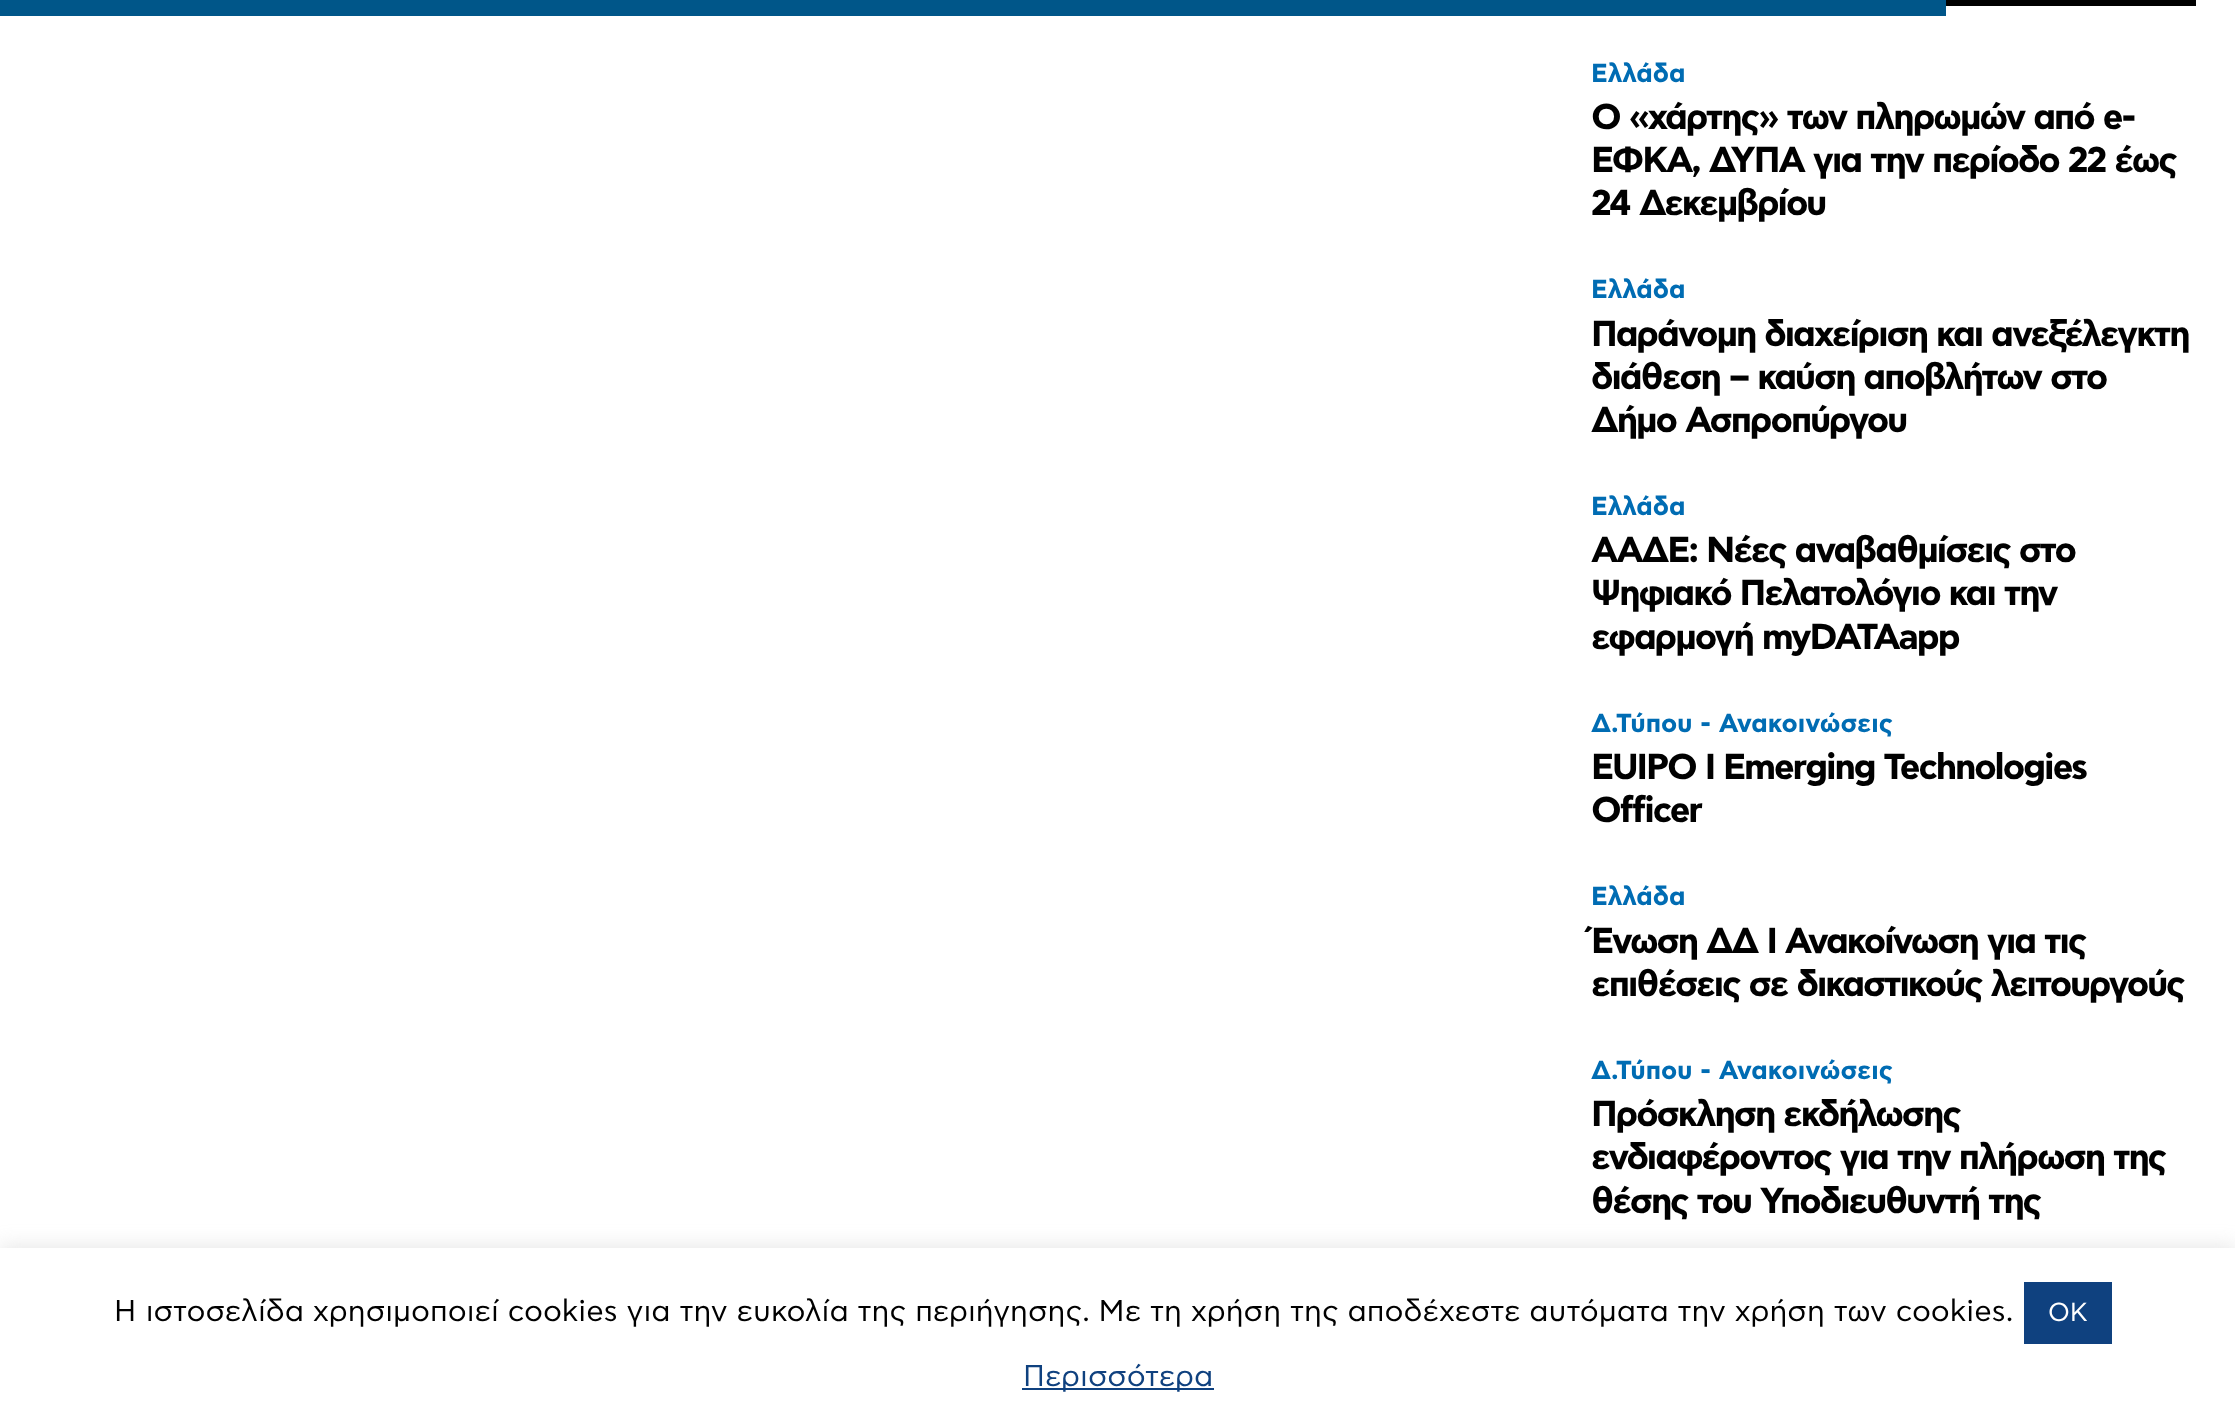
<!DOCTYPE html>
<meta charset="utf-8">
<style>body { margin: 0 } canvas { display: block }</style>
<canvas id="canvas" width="2235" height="1421"></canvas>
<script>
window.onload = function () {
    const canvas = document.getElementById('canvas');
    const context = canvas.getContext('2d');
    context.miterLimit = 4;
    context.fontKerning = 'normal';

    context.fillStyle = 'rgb(255, 255, 255)';
    context.fillRect(0, 0, 2235, 1421);
    context.fillStyle = 'rgb(0, 86, 137)';
    context.fillRect(0, 0, 1946, 16);
    context.fillStyle = 'rgb(0, 0, 0)';
    context.fillRect(1946, 0, 250, 6);
    context.fillStyle = 'rgba(172, 171, 171, 0.3)';
    context.filter = 'blur(10px)';
    context.beginPath();
    context.rect(0, 1246, 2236, 174);
    context.fill();
    context.filter = 'none';
    context.fillStyle = 'rgb(255, 255, 255)';
    context.fillRect(0, 1248, 2235, 173);
    context.fillStyle = 'rgb(15, 65, 127)';
    context.fillRect(2024, 1282, 88, 62);
    context.fillRect(1022, 1388, 192, 2);
    context.font = 'bold 26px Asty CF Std';
    context.fillStyle = 'rgb(0, 108, 179)';
    context.fillText('Ελλάδα', 1591, 82);
    context.letterSpacing = '-2px';
    context.font = 'bold 36px Asty CF Std';
    context.fillStyle = 'rgb(0, 0, 0)';
    context.fillText('Ο «χάρτης» των πληρωμών από e-', 1591, 129);
    context.fillText('ΕΦΚΑ, ΔΥΠΑ για την περίοδο 22 έως', 1591, 172);
    context.fillText('24 Δεκεμβρίου', 1591, 215);
    context.letterSpacing = '0px';
    context.font = 'bold 26px Asty CF Std';
    context.fillStyle = 'rgb(0, 108, 179)';
    context.fillText('Ελλάδα', 1591, 298);
    context.letterSpacing = '-2px';
    context.font = 'bold 36px Asty CF Std';
    context.fillStyle = 'rgb(0, 0, 0)';
    context.fillText('Παράνομη διαχείριση και ανεξέλεγκτη', 1591, 346);
    context.fillText('διάθεση – καύση αποβλήτων στο', 1591, 389);
    context.fillText('Δήμο Ασπροπύργου', 1591, 432);
    context.letterSpacing = '0px';
    context.font = 'bold 26px Asty CF Std';
    context.fillStyle = 'rgb(0, 108, 179)';
    context.fillText('Ελλάδα', 1591, 515);
    context.letterSpacing = '-2px';
    context.font = 'bold 36px Asty CF Std';
    context.fillStyle = 'rgb(0, 0, 0)';
    context.fillText('ΑΑΔΕ: Νέες αναβαθμίσεις στο', 1591, 562);
    context.fillText('Ψηφιακό Πελατολόγιο και την', 1591, 605);
    context.fillText('εφαρμογή myDATAapp', 1591, 649);
    context.letterSpacing = '0px';
    context.font = 'bold 26px Asty CF Std';
    context.fillStyle = 'rgb(0, 108, 179)';
    context.fillText('Δ.Τύπου - Ανακοινώσεις', 1591, 732);
    context.letterSpacing = '-2px';
    context.font = 'bold 36px Asty CF Std';
    context.fillStyle = 'rgb(0, 0, 0)';
    context.fillText('EUIPO I Emerging Technologies', 1591, 779);
    context.fillText('Officer', 1591, 822);
    context.letterSpacing = '0px';
    context.font = 'bold 26px Asty CF Std';
    context.fillStyle = 'rgb(0, 108, 179)';
    context.fillText('Ελλάδα', 1591, 905);
    context.letterSpacing = '-2px';
    context.font = 'bold 36px Asty CF Std';
    context.fillStyle = 'rgb(0, 0, 0)';
    context.fillText('Ένωση ΔΔ Ι Ανακοίνωση για τις', 1591, 953);
    context.fillText('επιθέσεις σε δικαστικούς λειτουργούς', 1591, 996);
    context.letterSpacing = '0px';
    context.font = 'bold 26px Asty CF Std';
    context.fillStyle = 'rgb(0, 108, 179)';
    context.fillText('Δ.Τύπου - Ανακοινώσεις', 1591, 1079);
    context.letterSpacing = '-2px';
    context.font = 'bold 36px Asty CF Std';
    context.fillStyle = 'rgb(0, 0, 0)';
    context.fillText('Πρόσκληση εκδήλωσης', 1591, 1126);
    context.fillText('ενδιαφέροντος για την πλήρωση της', 1591, 1169);
    context.fillText('θέσης του Υποδιευθυντή της', 1591, 1213);
    context.letterSpacing = '0px';
    context.font = '30px Asty CF Std';
    context.fillText('Η ιστοσελίδα χρησιμοποιεί cookies για την ευκολία της περιήγησης. Με τη χρήση της αποδέχεστε αυτόματα την χρήση των cookies.', 114, 1321);
    context.font = '26px Asty CF Std';
    context.fillStyle = 'rgb(255, 255, 255)';
    context.fillText('OK', 2048, 1321);
    context.font = '30px Asty CF Std';
    context.fillStyle = 'rgb(15, 65, 127)';
    context.fillText('Περισσότερα', 1023, 1386);
};
</script>
